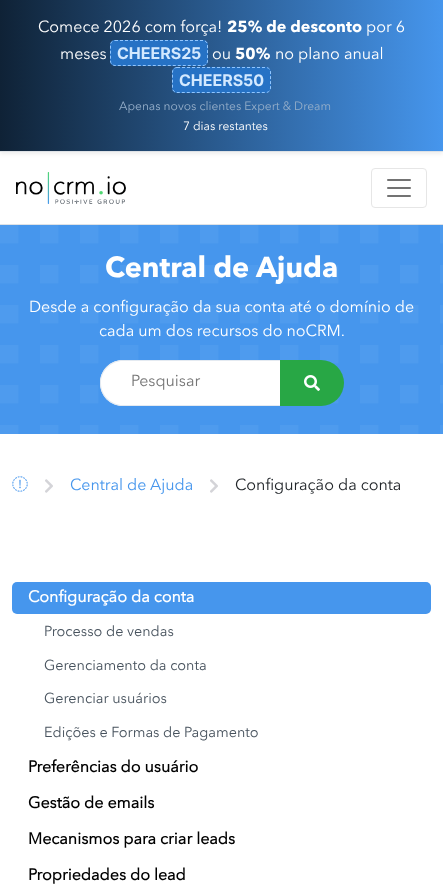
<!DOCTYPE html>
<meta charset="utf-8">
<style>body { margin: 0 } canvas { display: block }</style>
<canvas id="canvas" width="443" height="892"></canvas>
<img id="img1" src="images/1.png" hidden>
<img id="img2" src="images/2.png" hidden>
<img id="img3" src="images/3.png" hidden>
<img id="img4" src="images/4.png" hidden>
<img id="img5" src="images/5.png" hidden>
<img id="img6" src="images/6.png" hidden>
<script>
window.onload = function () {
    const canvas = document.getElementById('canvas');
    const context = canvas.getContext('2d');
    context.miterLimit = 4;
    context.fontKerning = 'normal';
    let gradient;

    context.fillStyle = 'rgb(255, 255, 255)';
    context.fillRect(0, 0, 443, 892);
    context.fillStyle = 'rgba(0, 0, 0, 0.07)';
    context.filter = 'blur(2px)';
    context.beginPath();
    context.rect(0, 2, 443, 152);
    context.fill();
    context.filter = 'none';
    gradient = context.createLinearGradient(0, 76, 443, 75);
    gradient.addColorStop(0, 'rgb(15, 34, 54)');
    gradient.addColorStop(1, 'rgb(70, 150, 237)');
    context.fillStyle = gradient;
    context.fillRect(0, 0, 443, 151);
    context.fillStyle = 'rgb(222, 226, 230)';
    context.fillRect(0, 151, 443, 1);
    context.fillStyle = 'rgb(38, 114, 197)';
    context.beginPath();
    context.roundRect(110, 40, 98, 26, 5);
    context.fill();
    context.beginPath();
    context.moveTo(115, 40.5);
    context.lineTo(203, 40.5);
    context.bezierCurveTo(205.5, 40.5, 207.5, 42.5, 207.5, 45);
    context.lineTo(207.5, 61);
    context.bezierCurveTo(207.5, 63.5, 205.5, 65.5, 203, 65.5);
    context.lineTo(115, 65.5);
    context.bezierCurveTo(112.5, 65.5, 110.5, 63.5, 110.5, 61);
    context.lineTo(110.5, 45);
    context.bezierCurveTo(110.5, 42.5, 112.5, 40.5, 115, 40.5);
    context.closePath();
    context.strokeStyle = 'rgb(145, 198, 255)';
    context.setLineDash([3, 2]);
    context.stroke();
    context.beginPath();
    context.roundRect(172, 67, 99, 26, 5);
    context.fill();
    context.beginPath();
    context.moveTo(177, 67.5);
    context.lineTo(266, 67.5);
    context.bezierCurveTo(268.5, 67.5, 270.5, 69.5, 270.5, 72);
    context.lineTo(270.5, 88);
    context.bezierCurveTo(270.5, 90.5, 268.5, 92.5, 266, 92.5);
    context.lineTo(177, 92.5);
    context.bezierCurveTo(174.5, 92.5, 172.5, 90.5, 172.5, 88);
    context.lineTo(172.5, 72);
    context.bezierCurveTo(172.5, 69.5, 174.5, 67.5, 177, 67.5);
    context.closePath();
    context.stroke();
    context.drawImage(document.getElementById('img1'), 16, 172, 110, 32);
    context.beginPath();
    context.roundRect(371.5, 168.5, 55, 39, 3.5);
    context.strokeStyle = 'rgb(230, 230, 230)';
    context.setLineDash([]);
    context.stroke();
    context.drawImage(document.getElementById('img2'), 387, 179, 24, 18);
    context.fillStyle = 'rgb(70, 150, 237)';
    context.fillRect(0, 225, 443, 209);
    context.drawImage(document.getElementById('img3'), 0, 225, 443, 209);
    context.fillStyle = 'rgb(222, 226, 230)';
    context.fillRect(0, 224, 443, 1);
    context.fillStyle = 'rgb(255, 255, 255)';
    context.beginPath();
    context.roundRect(100, 360, 180, 46, [23, 0, 0, 23]);
    context.fill();
    context.fillStyle = 'rgb(228, 234, 241)';
    context.beginPath();
    context.moveTo(123, 360);
    context.lineTo(280, 360);
    context.lineTo(280, 406);
    context.lineTo(123, 406);
    context.bezierCurveTo(110, 406, 100, 396, 100, 383);
    context.bezierCurveTo(100, 370, 110, 360, 123, 360);
    context.closePath();
    context.moveTo(123, 361);
    context.lineTo(280, 361);
    context.lineTo(280, 405);
    context.lineTo(123, 405);
    context.bezierCurveTo(111, 405, 101, 395, 101, 383);
    context.bezierCurveTo(101, 371, 111, 361, 123, 361);
    context.closePath();
    context.fill('evenodd');
    context.fillStyle = 'rgb(40, 167, 69)';
    context.beginPath();
    context.roundRect(280, 360, 64, 46, [0, 23, 23, 0]);
    context.fill();
    context.drawImage(document.getElementById('img4'), 304, 375, 16, 16);
    context.drawImage(document.getElementById('img5'), 12, 476, 16, 16);
    context.drawImage(document.getElementById('img6'), 45, 479, 8, 14);
    context.drawImage(document.getElementById('img6'), 210, 479, 8, 14);
    context.fillStyle = 'rgb(70, 150, 237)';
    context.beginPath();
    context.roundRect(12, 582, 419, 32, 5);
    context.fill();
    context.font = '16px Avenir Next';
    context.fillStyle = 'rgb(255, 255, 255)';
    context.fillText('Comece 2026 com força!', 38, 32);
    context.font = 'bold 16px "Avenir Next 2"';
    context.fillText('25% de desconto', 227, 32);
    context.font = '16px Avenir Next';
    context.fillText('por 6', 366, 32);
    context.fillText('meses', 60, 59);
    context.font = 'bold 16px Inter';
    context.fillStyle = 'rgb(211, 233, 255)';
    context.fillText('CHEERS25', 117, 59);
    context.font = '16px Avenir Next';
    context.fillStyle = 'rgb(255, 255, 255)';
    context.fillText('ou', 212, 59);
    context.font = 'bold 16px "Avenir Next 2"';
    context.fillText('50%', 235, 59);
    context.font = '16px Avenir Next';
    context.fillText('no plano anual', 275, 59);
    context.font = 'bold 16px Inter';
    context.fillStyle = 'rgb(211, 233, 255)';
    context.fillText('CHEERS50', 179, 86);
    context.font = '12px Avenir Next';
    context.fillStyle = 'rgb(149, 174, 201)';
    context.fillText('Apenas novos clientes Expert & Dream', 119, 110);
    context.fillStyle = 'rgb(255, 255, 255)';
    context.fillText('7 dias restantes', 183, 130);
    context.font = 'bold 28.75px "Avenir Next 2"';
    context.fillText('Central de Ajuda', 105, 277);
    context.font = '16px Avenir Next';
    context.fillText('Desde a configuração da sua conta até o domínio de', 29, 312);
    context.fillText('cada um dos recursos do noCRM.', 99, 336);
    context.fillStyle = 'rgb(117, 117, 117)';
    context.fillText('Pesquisar', 131, 386);
    context.fillStyle = 'rgb(70, 150, 237)';
    context.fillText('Central de Ajuda', 70, 490);
    context.fillStyle = 'rgb(33, 37, 41)';
    context.fillText('Configuração da conta', 235, 490);
    context.font = 'bold 16px Avenir Next';
    context.fillStyle = 'rgb(255, 255, 255)';
    context.fillText('Configuração da conta', 28, 602);
    context.font = '14.4px Avenir Next';
    context.fillStyle = 'rgb(71, 82, 93)';
    context.fillText('Processo de vendas', 44, 636);
    context.fillText('Gerenciamento da conta', 44, 670);
    context.fillText('Gerenciar usuários', 44, 703);
    context.fillText('Edições e Formas de Pagamento', 44, 737);
    context.font = 'bold 16px Avenir Next';
    context.fillStyle = 'rgb(0, 0, 0)';
    context.fillText('Preferências do usuário', 28, 772);
    context.fillText('Gestão de emails', 28, 808);
    context.fillText('Mecanismos para criar leads', 28, 844);
    context.fillText('Propriedades do lead', 28, 880);
};
</script>
